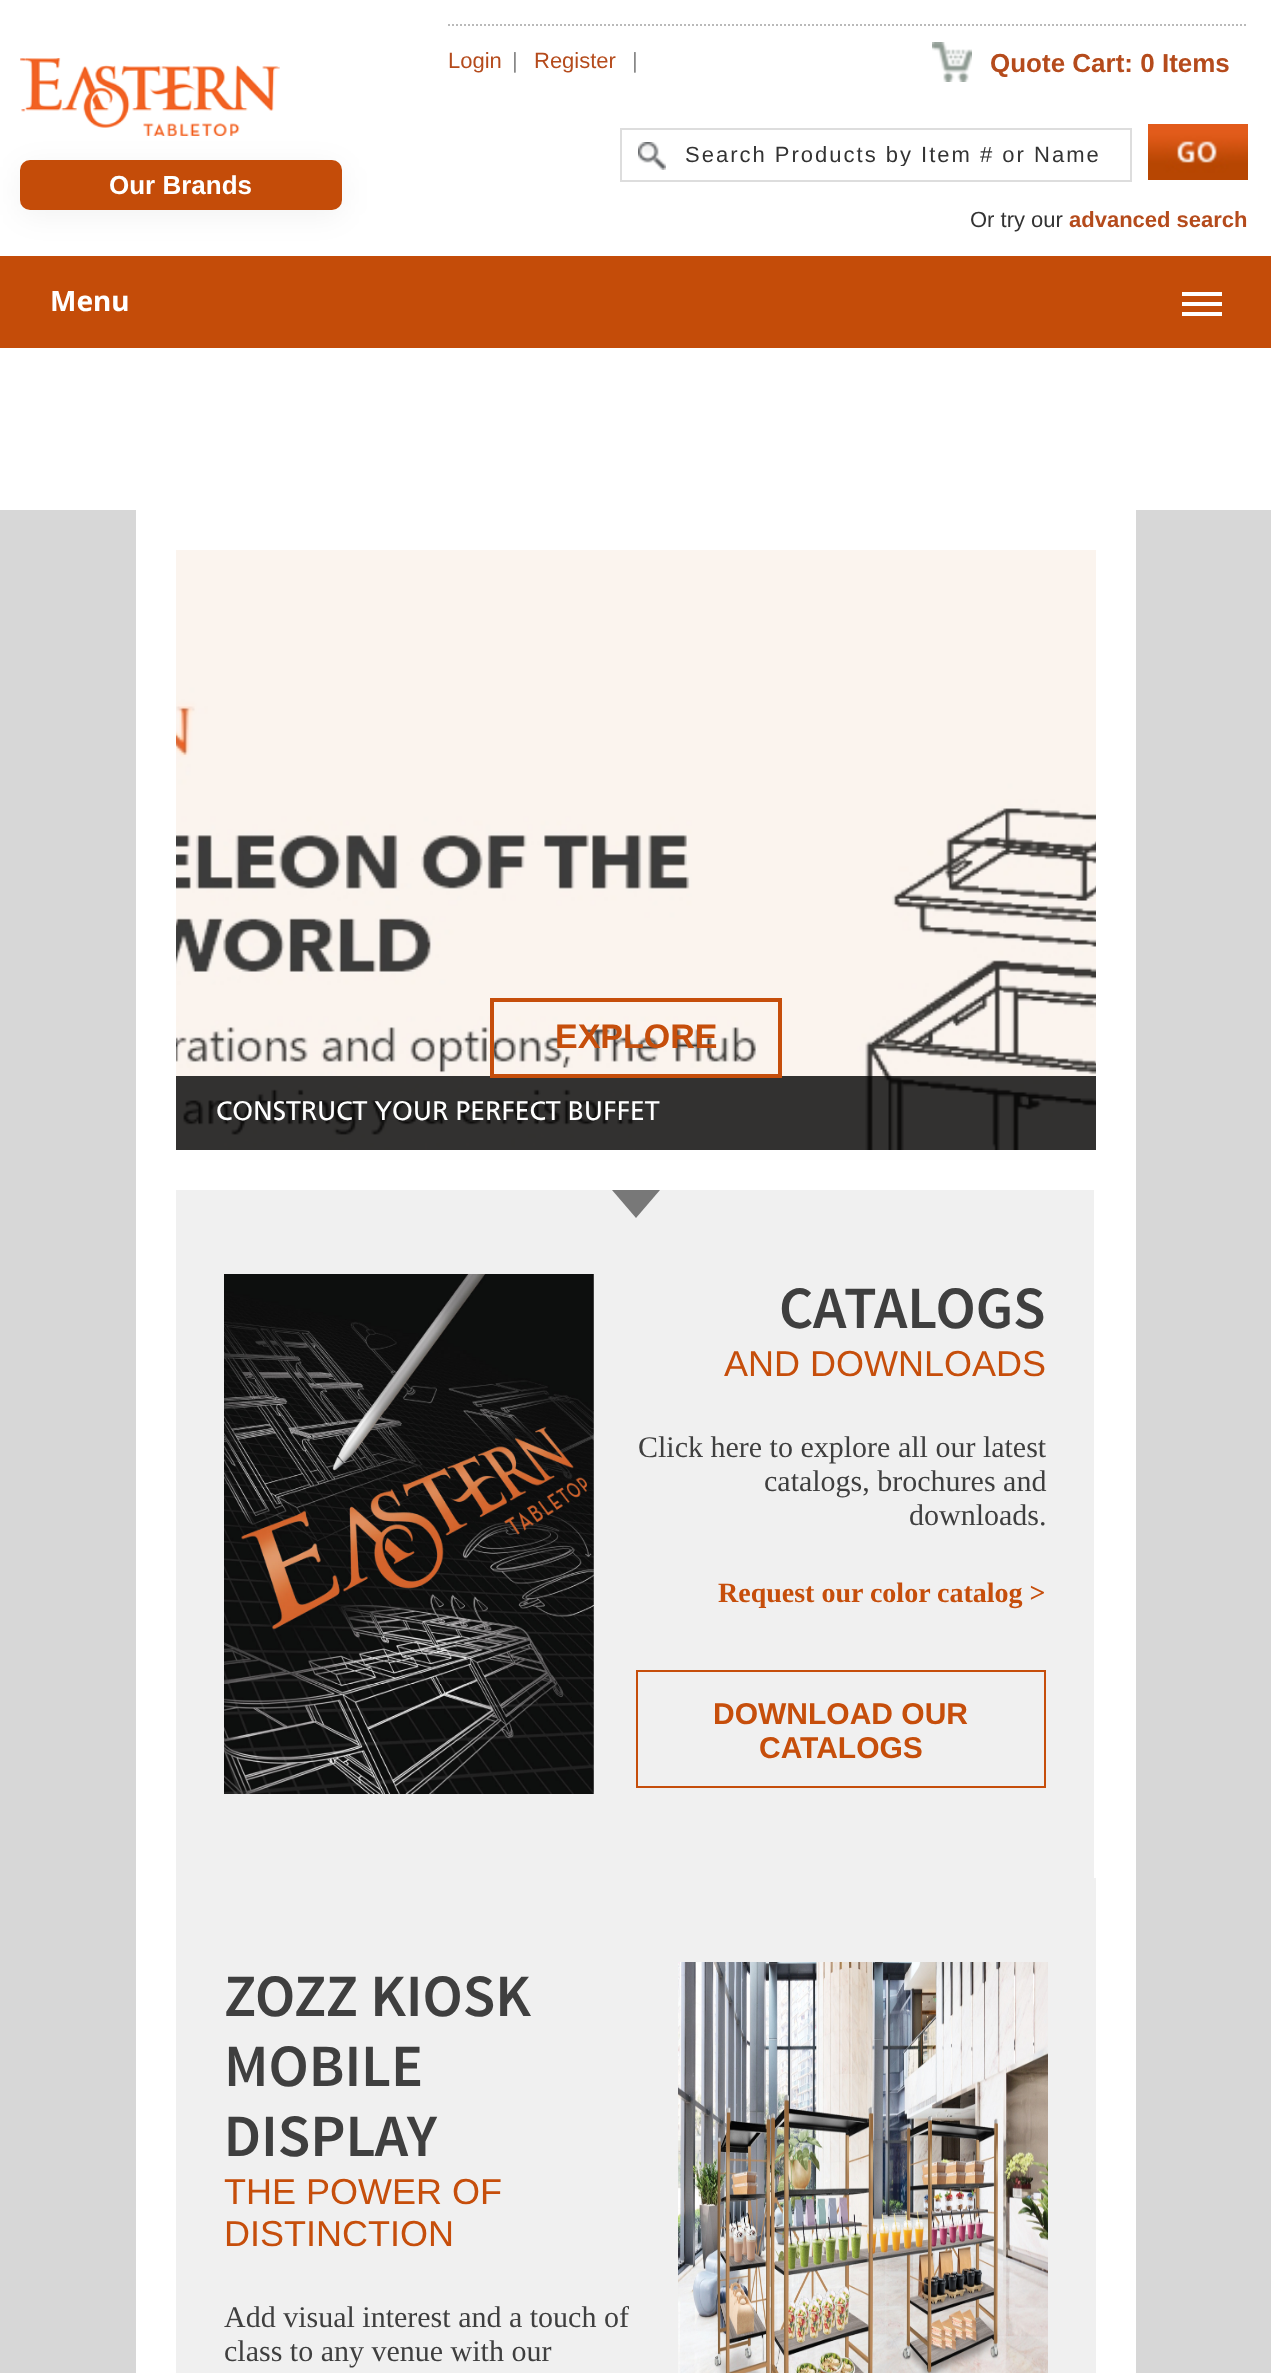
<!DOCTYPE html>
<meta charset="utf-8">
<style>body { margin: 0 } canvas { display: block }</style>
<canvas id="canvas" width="1271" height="2373"></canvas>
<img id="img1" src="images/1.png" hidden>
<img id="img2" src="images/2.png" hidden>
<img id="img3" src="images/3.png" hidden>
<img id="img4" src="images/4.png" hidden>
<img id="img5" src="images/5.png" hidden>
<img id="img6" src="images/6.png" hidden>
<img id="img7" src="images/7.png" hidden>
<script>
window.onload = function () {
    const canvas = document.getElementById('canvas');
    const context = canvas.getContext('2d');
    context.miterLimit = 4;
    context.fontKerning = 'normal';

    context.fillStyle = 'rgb(215, 215, 215)';
    context.fillRect(0, 0, 1271, 2373);
    context.fillStyle = 'rgb(255, 255, 255)';
    context.fillRect(0, 0, 1271, 510);
    context.drawImage(document.getElementById('img1'), 20, 58, 260, 78);
    context.beginPath();
    context.moveTo(448, 25);
    context.lineTo(1248, 25);
    context.strokeStyle = 'rgb(186, 186, 186)';
    context.lineWidth = 2;
    context.setLineDash([2, 2]);
    context.stroke();
    context.drawImage(document.getElementById('img2'), 932, 42, 40, 40);
    context.drawImage(document.getElementById('img3'), 638, 142, 28, 28);
    context.strokeStyle = 'rgb(221, 221, 221)';
    context.setLineDash([]);
    context.strokeRect(621, 129, 510, 52);
    context.drawImage(document.getElementById('img4'), 1148, 124, 100, 56);
    context.fillStyle = 'rgb(196, 76, 9)';
    context.fillRect(0, 256, 1271, 92);
    context.fillStyle = 'rgba(0, 0, 0, 0.05)';
    context.filter = 'blur(15px)';
    context.beginPath();
    context.roundRect(20, 166, 322, 50, 10);
    context.fill();
    context.filter = 'none';
    context.fillStyle = 'rgb(196, 76, 9)';
    context.beginPath();
    context.roundRect(20, 160, 322, 50, 10);
    context.fill();
    context.fillStyle = 'rgb(255, 255, 255)';
    context.fillRect(1182, 292, 40, 4);
    context.fillRect(1182, 302, 40, 4);
    context.fillRect(1182, 312, 40, 4);
    context.fillRect(136, 510, 1000, 1863);
    context.drawImage(document.getElementById('img5'), 176, 550, 920, 600);
    context.fillStyle = 'rgba(0, 0, 0, 0.8)';
    context.fillRect(176, 1076, 920, 74);
    context.strokeStyle = 'rgb(198, 78, 11)';
    context.lineWidth = 4;
    context.strokeRect(492, 1000, 288, 76);
    context.fillStyle = 'rgb(240, 240, 240)';
    context.fillRect(176, 1190, 920, 1183);
    context.fillStyle = 'rgb(120, 120, 120)';
    context.beginPath();
    context.moveTo(612, 1190);
    context.lineTo(660, 1190);
    context.lineTo(636, 1218);
    context.closePath();
    context.fill();
    context.fillStyle = 'rgb(255, 255, 255)';
    context.fillRect(1094, 1190, 2, 688);
    context.drawImage(document.getElementById('img6'), 224, 1274, 370, 520);
    context.lineWidth = 2;
    context.strokeRect(637, 1671, 408, 116);
    context.drawImage(document.getElementById('img7'), 678, 1962, 370, 411);
    context.font = '22px Liberation Sans';
    context.fillStyle = 'rgb(181, 75, 28)';
    context.fillText('Login', 448, 68);
    context.fillStyle = 'rgb(136, 136, 136)';
    context.fillText('|', 512, 68);
    context.fillStyle = 'rgb(181, 75, 28)';
    context.fillText('Register', 534, 68);
    context.fillStyle = 'rgb(136, 136, 136)';
    context.fillText('|', 632, 68);
    context.font = 'bold 26px Liberation Sans';
    context.fillStyle = 'rgb(181, 75, 28)';
    context.fillText('Quote Cart: 0 Items', 990, 72);
    context.save();
    context.beginPath();
    context.rect(686, 142, 440, 24);
    context.clip();
    context.letterSpacing = '2px';
    context.font = '22px Liberation Sans';
    context.fillStyle = 'rgb(51, 51, 51)';
    context.fillText('Search Products by Item # or Name', 685, 162);
    context.restore();
    context.font = '22px Liberation Sans';
    context.fillStyle = 'rgb(51, 51, 51)';
    context.fillText('Or try our', 970, 227);
    context.font = 'bold 22px Liberation Sans';
    context.fillStyle = 'rgb(181, 75, 28)';
    context.fillText('advanced search', 1069, 227);
    context.font = 'bold 26px Liberation Sans';
    context.fillStyle = 'rgb(255, 255, 255)';
    context.fillText('Our Brands', 109, 194);
    context.font = 'bold 28px Noto Sans';
    context.fillText('Menu', 50, 311);
    context.font = 'bold 34px Liberation Sans';
    context.fillStyle = 'rgb(198, 78, 11)';
    context.fillText('EXPLORE', 555, 1048);
    context.font = '28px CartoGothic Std';
    context.fillStyle = 'rgb(255, 255, 255)';
    context.fillText('CONSTRUCT YOUR PERFECT BUFFET', 216, 1120);
    context.font = '600 60px Source Sans Pro';
    context.fillStyle = 'rgb(63, 63, 63)';
    context.fillText('CATALOGS', 779, 1328);
    context.font = '36px Liberation Sans';
    context.fillStyle = 'rgb(198, 78, 11)';
    context.fillText('AND DOWNLOADS', 724, 1376);
    context.font = '30px Liberation Serif';
    context.fillStyle = 'rgb(63, 63, 63)';
    context.fillText('Click here to explore all our latest', 638, 1457);
    context.fillText('catalogs, brochures and', 764, 1491);
    context.fillText('downloads.', 909, 1525);
    context.font = 'bold 28px Liberation Serif';
    context.fillStyle = 'rgb(198, 78, 11)';
    context.fillText('Request our color catalog >', 718, 1602);
    context.font = 'bold 30px Liberation Sans';
    context.fillText('DOWNLOAD OUR', 713, 1724);
    context.fillText('CATALOGS', 759, 1758);
    context.font = '600 60px Source Sans Pro';
    context.fillStyle = 'rgb(63, 63, 63)';
    context.fillText('ZOZZ KIOSK', 224, 2016);
    context.fillText('MOBILE', 224, 2086);
    context.fillText('DISPLAY', 224, 2156);
    context.font = '36px Liberation Sans';
    context.fillStyle = 'rgb(198, 78, 11)';
    context.fillText('THE POWER OF', 224, 2204);
    context.fillText('DISTINCTION', 224, 2246);
    context.font = '30px Liberation Serif';
    context.fillStyle = 'rgb(63, 63, 63)';
    context.fillText('Add visual interest and a touch of', 224, 2327);
    context.fillText('class to any venue with our', 224, 2361);
};
</script>
